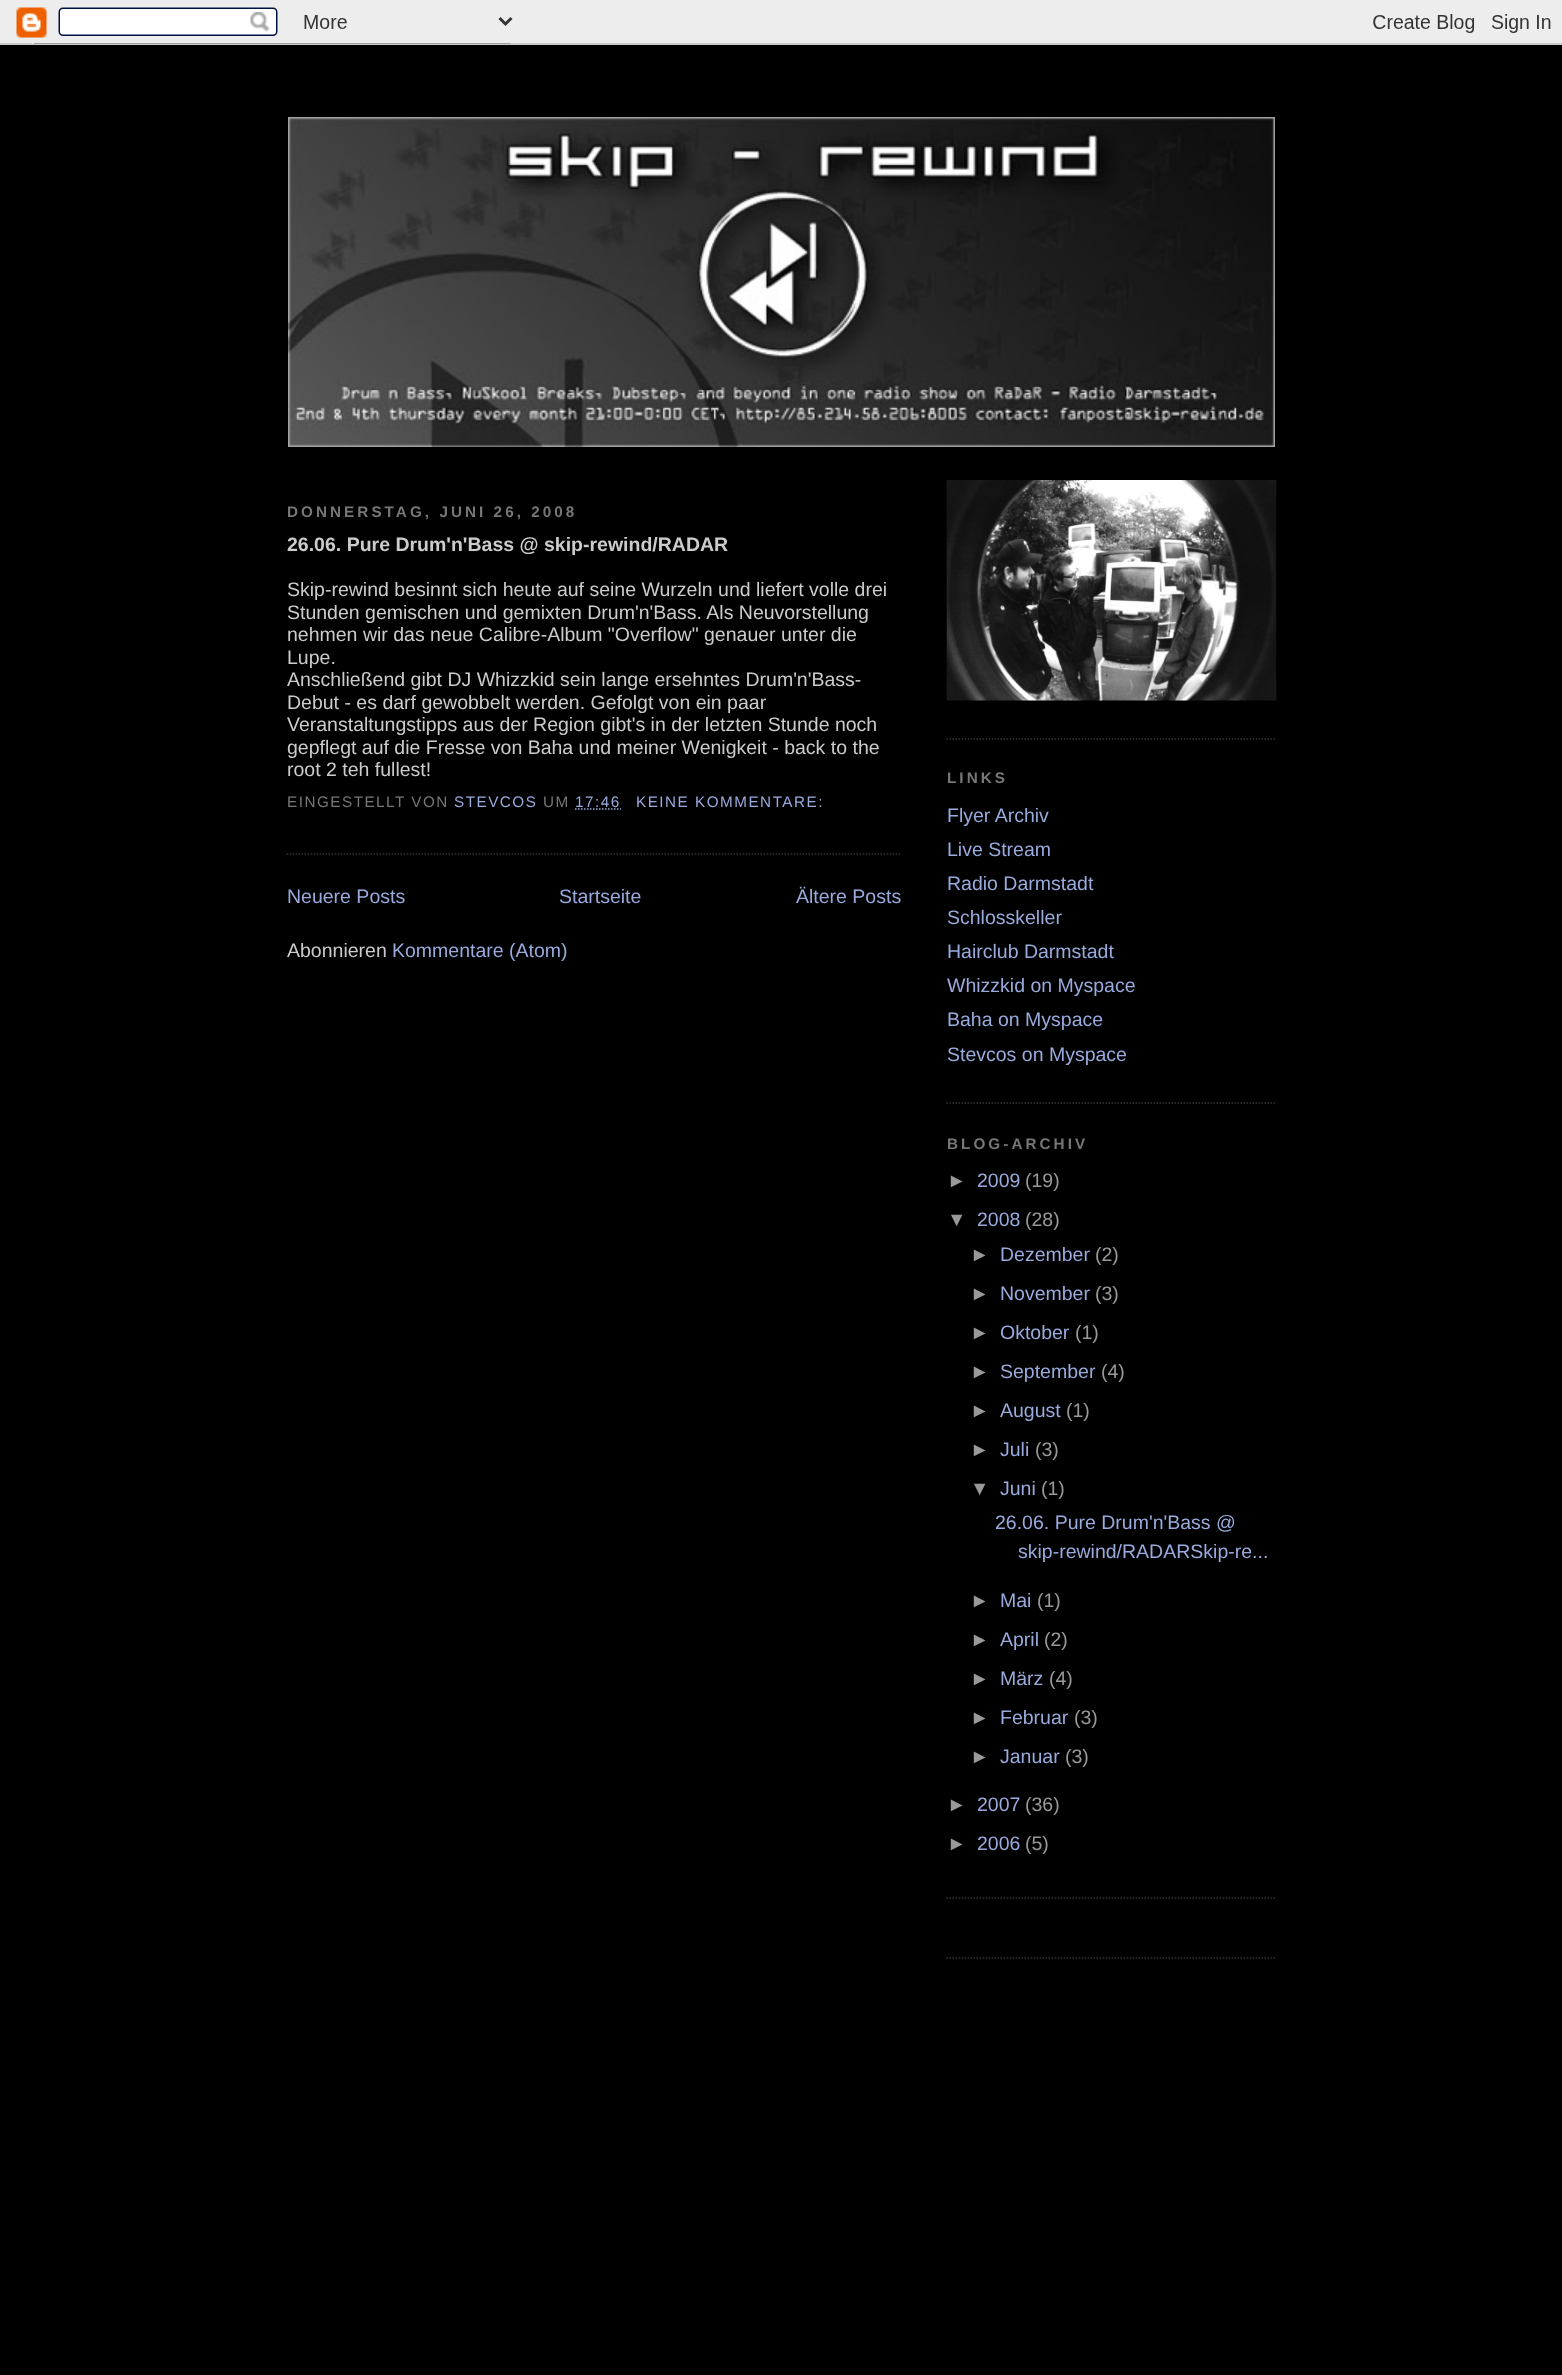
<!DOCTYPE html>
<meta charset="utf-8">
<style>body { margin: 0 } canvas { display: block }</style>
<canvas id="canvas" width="1562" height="2375"></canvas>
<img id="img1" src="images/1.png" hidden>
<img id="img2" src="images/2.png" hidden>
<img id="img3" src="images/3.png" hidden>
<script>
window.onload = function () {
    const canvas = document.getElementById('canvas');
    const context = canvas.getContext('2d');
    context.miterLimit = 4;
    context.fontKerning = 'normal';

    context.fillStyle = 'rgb(0, 0, 0)';
    context.fillRect(0, 0, 1562, 2375);
    context.drawImage(document.getElementById('img1'), 0, 0, 1562, 45);
    context.drawImage(document.getElementById('img2'), 288, 117, 987, 330);
    context.beginPath();
    context.moveTo(286.5, 854);
    context.lineTo(901.5, 854);
    context.strokeStyle = 'rgb(51, 51, 51)';
    context.lineWidth = 1.5;
    context.setLineDash([1.5, 1.5]);
    context.stroke();
    context.beginPath();
    context.moveTo(575, 809);
    context.lineTo(621, 809);
    context.strokeStyle = 'rgb(153, 170, 221)';
    context.stroke();
    context.beginPath();
    context.moveTo(946.5, 739);
    context.lineTo(1276.5, 739);
    context.strokeStyle = 'rgb(51, 51, 51)';
    context.stroke();
    context.drawImage(document.getElementById('img3'), 946, 480, 331, 221);
    context.beginPath();
    context.moveTo(946.5, 1103);
    context.lineTo(1276.5, 1103);
    context.stroke();
    context.beginPath();
    context.moveTo(946.5, 1898);
    context.lineTo(1276.5, 1898);
    context.stroke();
    context.beginPath();
    context.moveTo(946.5, 1958);
    context.lineTo(1276.5, 1958);
    context.stroke();
    context.letterSpacing = '3.05px';
    context.font = 'bold 15.25px Liberation Sans';
    context.fillStyle = 'rgb(119, 119, 119)';
    context.fillText('DONNERSTAG, JUNI 26, 2008', 287, 517);
    context.letterSpacing = '0px';
    context.font = 'bold 19.5px Liberation Sans';
    context.fillStyle = 'rgb(204, 204, 204)';
    context.fillText('26.06. Pure Drum\'n\'Bass @ skip-rewind/RADAR', 287, 551);
    context.font = '19.5px Liberation Sans';
    context.fillText('Skip-rewind besinnt sich heute auf seine Wurzeln und liefert volle drei', 287, 596);
    context.fillText('Stunden gemischen und gemixten Drum\'n\'Bass. Als Neuvorstellung', 287, 619);
    context.fillText('nehmen wir das neue Calibre-Album "Overflow" genauer unter die', 287, 641);
    context.fillText('Lupe.', 287, 664);
    context.fillText('Anschließend gibt DJ Whizzkid sein lange ersehntes Drum\'n\'Bass-', 287, 686);
    context.fillText('Debut - es darf gewobbelt werden. Gefolgt von ein paar', 287, 709);
    context.fillText('Veranstaltungstipps aus der Region gibt\'s in der letzten Stunde noch', 287, 731);
    context.fillText('gepflegt auf die Fresse von Baha und meiner Wenigkeit - back to the', 287, 754);
    context.fillText('root 2 teh fullest!', 287, 776);
    context.letterSpacing = '1.5px';
    context.font = '15.25px Liberation Sans';
    context.fillStyle = 'rgb(119, 119, 119)';
    context.fillText('EINGESTELLT VON', 287, 807);
    context.fillStyle = 'rgb(153, 170, 221)';
    context.fillText('STEVCOS', 454, 807);
    context.fillStyle = 'rgb(119, 119, 119)';
    context.fillText('UM', 543, 807);
    context.fillStyle = 'rgb(153, 170, 221)';
    context.fillText('17:46', 575, 807);
    context.fillText('KEINE KOMMENTARE:', 636, 807);
    context.letterSpacing = '0px';
    context.font = '19.5px Liberation Sans';
    context.fillText('Neuere Posts', 287, 903);
    context.fillText('Startseite', 559, 903);
    context.fillText('Ältere Posts', 796, 903);
    context.fillStyle = 'rgb(204, 204, 204)';
    context.fillText('Abonnieren', 287, 957);
    context.fillStyle = 'rgb(153, 170, 221)';
    context.fillText('Kommentare (Atom)', 392, 957);
    context.letterSpacing = '3.05px';
    context.font = 'bold 15.25px Liberation Sans';
    context.fillStyle = 'rgb(119, 119, 119)';
    context.fillText('LINKS', 947, 783);
    context.letterSpacing = '0px';
    context.font = '19.5px Liberation Sans';
    context.fillStyle = 'rgb(153, 170, 221)';
    context.fillText('Flyer Archiv', 947, 822);
    context.fillText('Live Stream', 947, 856);
    context.fillText('Radio Darmstadt', 947, 890);
    context.fillText('Schlosskeller', 947, 924);
    context.fillText('Hairclub Darmstadt', 947, 958);
    context.fillText('Whizzkid on Myspace', 947, 992);
    context.fillText('Baha on Myspace', 947, 1026);
    context.fillText('Stevcos on Myspace', 947, 1061);
    context.letterSpacing = '3.05px';
    context.font = 'bold 15.25px Liberation Sans';
    context.fillStyle = 'rgb(119, 119, 119)';
    context.fillText('BLOG-ARCHIV', 947, 1149);
    context.letterSpacing = '0px';
    context.font = '19.5px Liberation Sans';
    context.fillStyle = 'rgb(153, 153, 153)';
    context.fillText('►', 947, 1187);
    context.fillStyle = 'rgb(153, 170, 221)';
    context.fillText('2009', 977, 1187);
    context.fillStyle = 'rgb(153, 153, 153)';
    context.fillText('(19)', 1025, 1187);
    context.fillText('▼', 947, 1226);
    context.fillStyle = 'rgb(153, 170, 221)';
    context.fillText('2008', 977, 1226);
    context.fillStyle = 'rgb(153, 153, 153)';
    context.fillText('(28)', 1025, 1226);
    context.fillText('►', 970, 1261);
    context.fillStyle = 'rgb(153, 170, 221)';
    context.fillText('Dezember', 1000, 1261);
    context.fillStyle = 'rgb(153, 153, 153)';
    context.fillText('(2)', 1095, 1261);
    context.fillText('►', 970, 1300);
    context.fillStyle = 'rgb(153, 170, 221)';
    context.fillText('November', 1000, 1300);
    context.fillStyle = 'rgb(153, 153, 153)';
    context.fillText('(3)', 1095, 1300);
    context.fillText('►', 970, 1339);
    context.fillStyle = 'rgb(153, 170, 221)';
    context.fillText('Oktober', 1000, 1339);
    context.fillStyle = 'rgb(153, 153, 153)';
    context.fillText('(1)', 1075, 1339);
    context.fillText('►', 970, 1378);
    context.fillStyle = 'rgb(153, 170, 221)';
    context.fillText('September', 1000, 1378);
    context.fillStyle = 'rgb(153, 153, 153)';
    context.fillText('(4)', 1101, 1378);
    context.fillText('►', 970, 1417);
    context.fillStyle = 'rgb(153, 170, 221)';
    context.fillText('August', 1000, 1417);
    context.fillStyle = 'rgb(153, 153, 153)';
    context.fillText('(1)', 1066, 1417);
    context.fillText('►', 970, 1456);
    context.fillStyle = 'rgb(153, 170, 221)';
    context.fillText('Juli', 1000, 1456);
    context.fillStyle = 'rgb(153, 153, 153)';
    context.fillText('(3)', 1035, 1456);
    context.fillText('▼', 970, 1495);
    context.fillStyle = 'rgb(153, 170, 221)';
    context.fillText('Juni', 1000, 1495);
    context.fillStyle = 'rgb(153, 153, 153)';
    context.fillText('(1)', 1041, 1495);
    context.fillStyle = 'rgb(153, 170, 221)';
    context.fillText('26.06. Pure Drum\'n\'Bass @', 995, 1529);
    context.fillText('skip-rewind/RADARSkip-re...', 1018, 1558);
    context.fillStyle = 'rgb(153, 153, 153)';
    context.fillText('►', 970, 1607);
    context.fillStyle = 'rgb(153, 170, 221)';
    context.fillText('Mai', 1000, 1607);
    context.fillStyle = 'rgb(153, 153, 153)';
    context.fillText('(1)', 1037, 1607);
    context.fillText('►', 970, 1646);
    context.fillStyle = 'rgb(153, 170, 221)';
    context.fillText('April', 1000, 1646);
    context.fillStyle = 'rgb(153, 153, 153)';
    context.fillText('(2)', 1044, 1646);
    context.fillText('►', 970, 1685);
    context.fillStyle = 'rgb(153, 170, 221)';
    context.fillText('März', 1000, 1685);
    context.fillStyle = 'rgb(153, 153, 153)';
    context.fillText('(4)', 1049, 1685);
    context.fillText('►', 970, 1724);
    context.fillStyle = 'rgb(153, 170, 221)';
    context.fillText('Februar', 1000, 1724);
    context.fillStyle = 'rgb(153, 153, 153)';
    context.fillText('(3)', 1074, 1724);
    context.fillText('►', 970, 1763);
    context.fillStyle = 'rgb(153, 170, 221)';
    context.fillText('Januar', 1000, 1763);
    context.fillStyle = 'rgb(153, 153, 153)';
    context.fillText('(3)', 1065, 1763);
    context.fillText('►', 947, 1811);
    context.fillStyle = 'rgb(153, 170, 221)';
    context.fillText('2007', 977, 1811);
    context.fillStyle = 'rgb(153, 153, 153)';
    context.fillText('(36)', 1025, 1811);
    context.fillText('►', 947, 1850);
    context.fillStyle = 'rgb(153, 170, 221)';
    context.fillText('2006', 977, 1850);
    context.fillStyle = 'rgb(153, 153, 153)';
    context.fillText('(5)', 1025, 1850);
};
</script>
